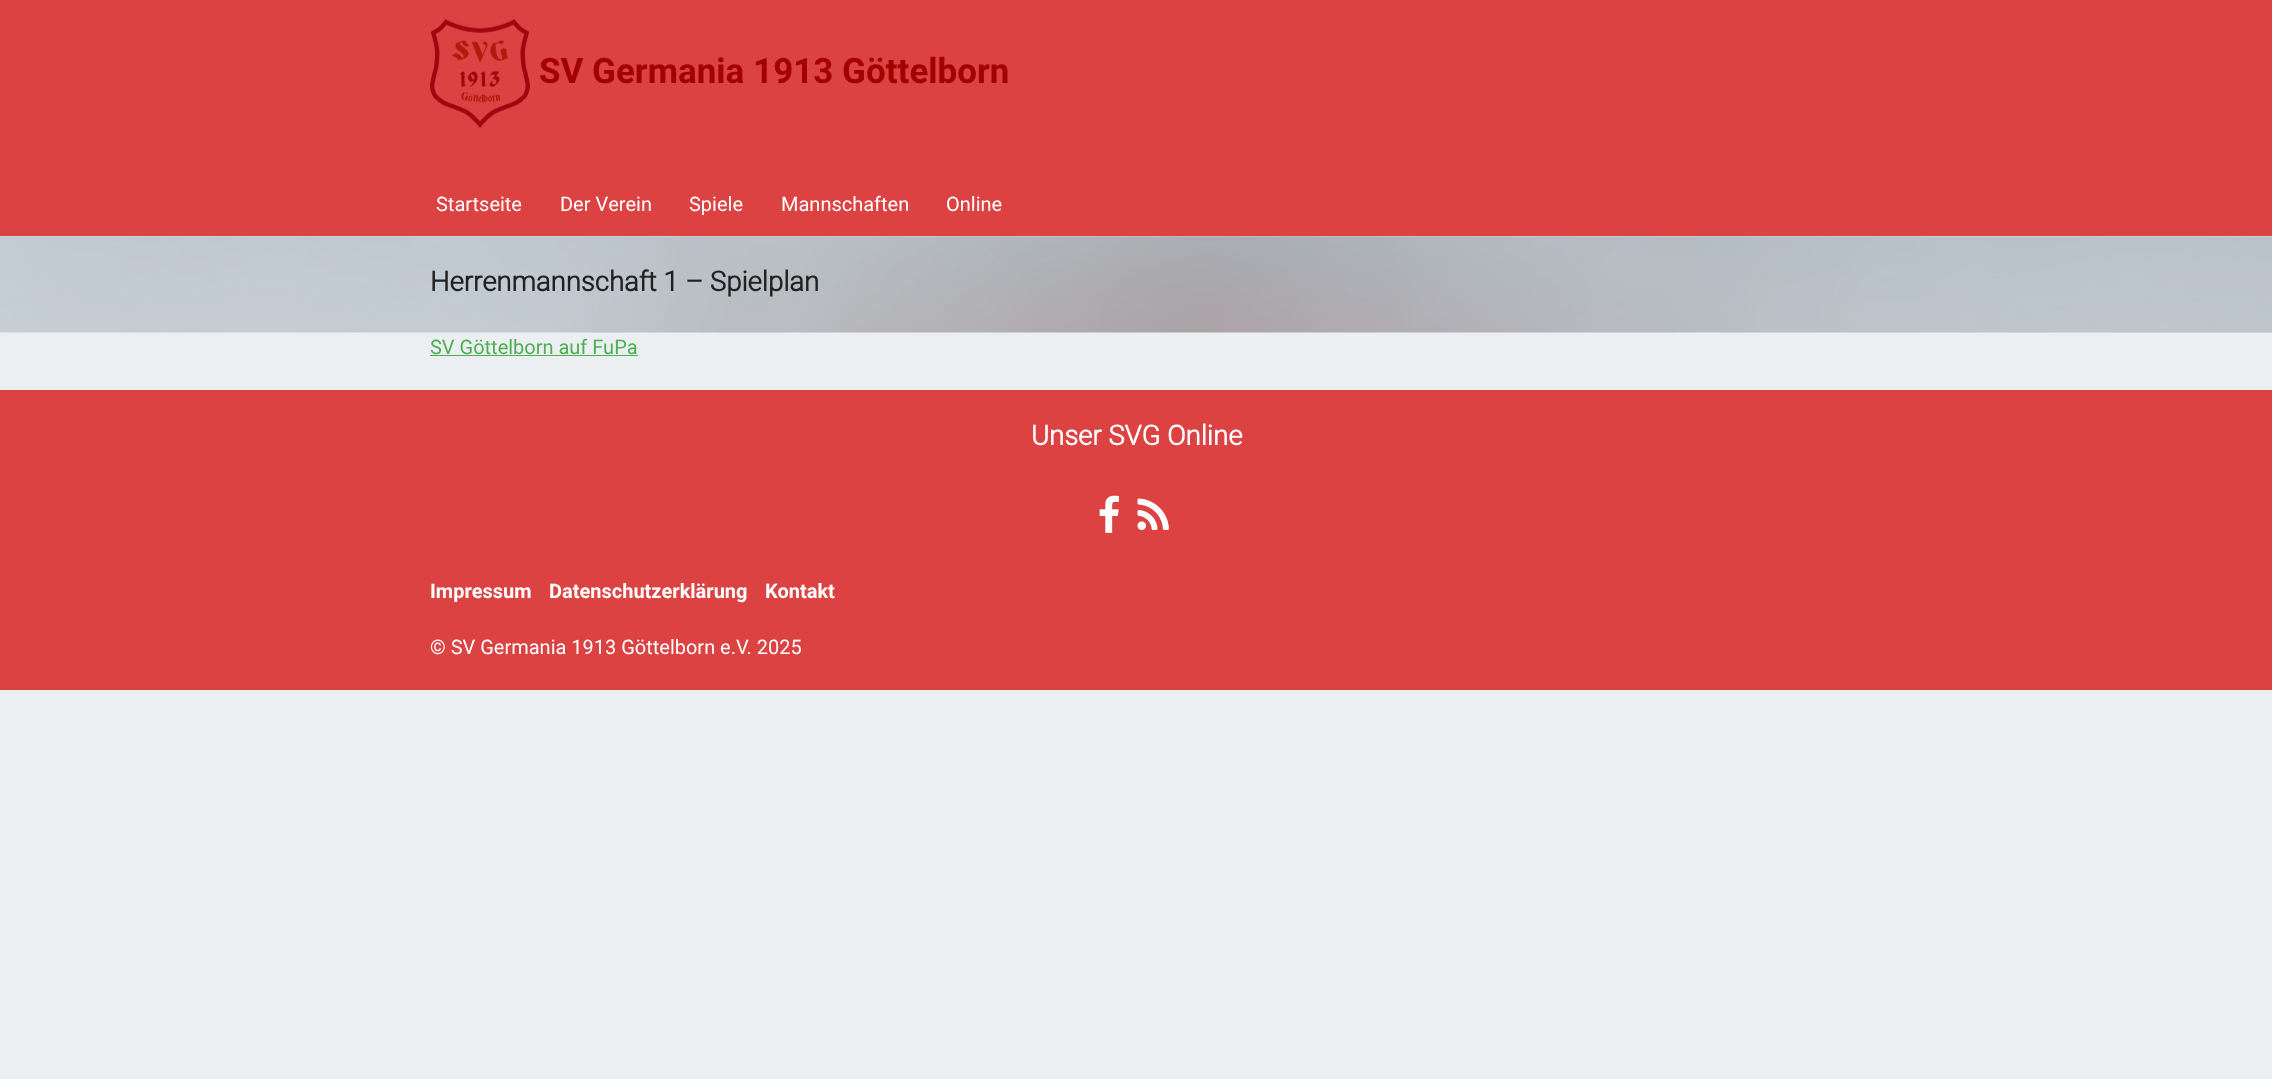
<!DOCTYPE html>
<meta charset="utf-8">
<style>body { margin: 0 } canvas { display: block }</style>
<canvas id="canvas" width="2272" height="1079"></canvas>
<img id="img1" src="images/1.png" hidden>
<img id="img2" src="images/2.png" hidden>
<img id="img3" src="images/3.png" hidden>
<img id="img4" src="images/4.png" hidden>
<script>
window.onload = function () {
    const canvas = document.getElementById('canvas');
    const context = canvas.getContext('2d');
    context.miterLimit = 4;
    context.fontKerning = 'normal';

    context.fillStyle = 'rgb(236, 239, 241)';
    context.fillRect(0, 0, 2272, 1079);
    context.fillStyle = 'rgb(221, 66, 66)';
    context.fillRect(0, 0, 2272, 236);
    context.drawImage(document.getElementById('img1'), 430, 19, 100, 109);
    context.drawImage(document.getElementById('img2'), 0, 236, 2272, 97);
    context.fillStyle = 'rgb(76, 175, 80)';
    context.fillRect(430, 355, 208, 1);
    context.fillStyle = 'rgb(221, 66, 66)';
    context.fillRect(0, 390, 2272, 300);
    context.drawImage(document.getElementById('img3'), 1099, 495, 20, 38);
    context.drawImage(document.getElementById('img4'), 1137, 498, 32, 32);
    context.font = 'bold 35px "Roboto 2"';
    context.fillStyle = 'rgb(163, 0, 0)';
    context.fillText('SV Germania 1913 Göttelborn', 539, 83);
    context.font = '20px Roboto';
    context.fillStyle = 'rgb(255, 255, 255)';
    context.fillText('Startseite', 436, 211);
    context.fillText('Der Verein', 560, 211);
    context.fillText('Spiele', 689, 211);
    context.fillText('Mannschaften', 781, 211);
    context.fillText('Online', 946, 211);
    context.font = 'bold 27.5px Roboto';
    context.fillStyle = 'rgb(33, 33, 33)';
    context.fillText('Herrenmannschaft 1 – Spielplan', 430, 291);
    context.font = '20px Roboto';
    context.fillStyle = 'rgb(76, 175, 80)';
    context.fillText('SV Göttelborn auf FuPa', 430, 354);
    context.font = 'bold 27.5px Roboto';
    context.fillStyle = 'rgb(255, 255, 255)';
    context.fillText('Unser SVG Online', 1031, 445);
    context.font = 'bold 20px "Roboto 2"';
    context.fillText('Impressum', 430, 598);
    context.fillText('Datenschutzerklärung', 549, 598);
    context.fillText('Kontakt', 765, 598);
    context.font = '20px Roboto';
    context.fillText('© SV Germania 1913 Göttelborn e.V. 2025', 430, 654);
};
</script>
